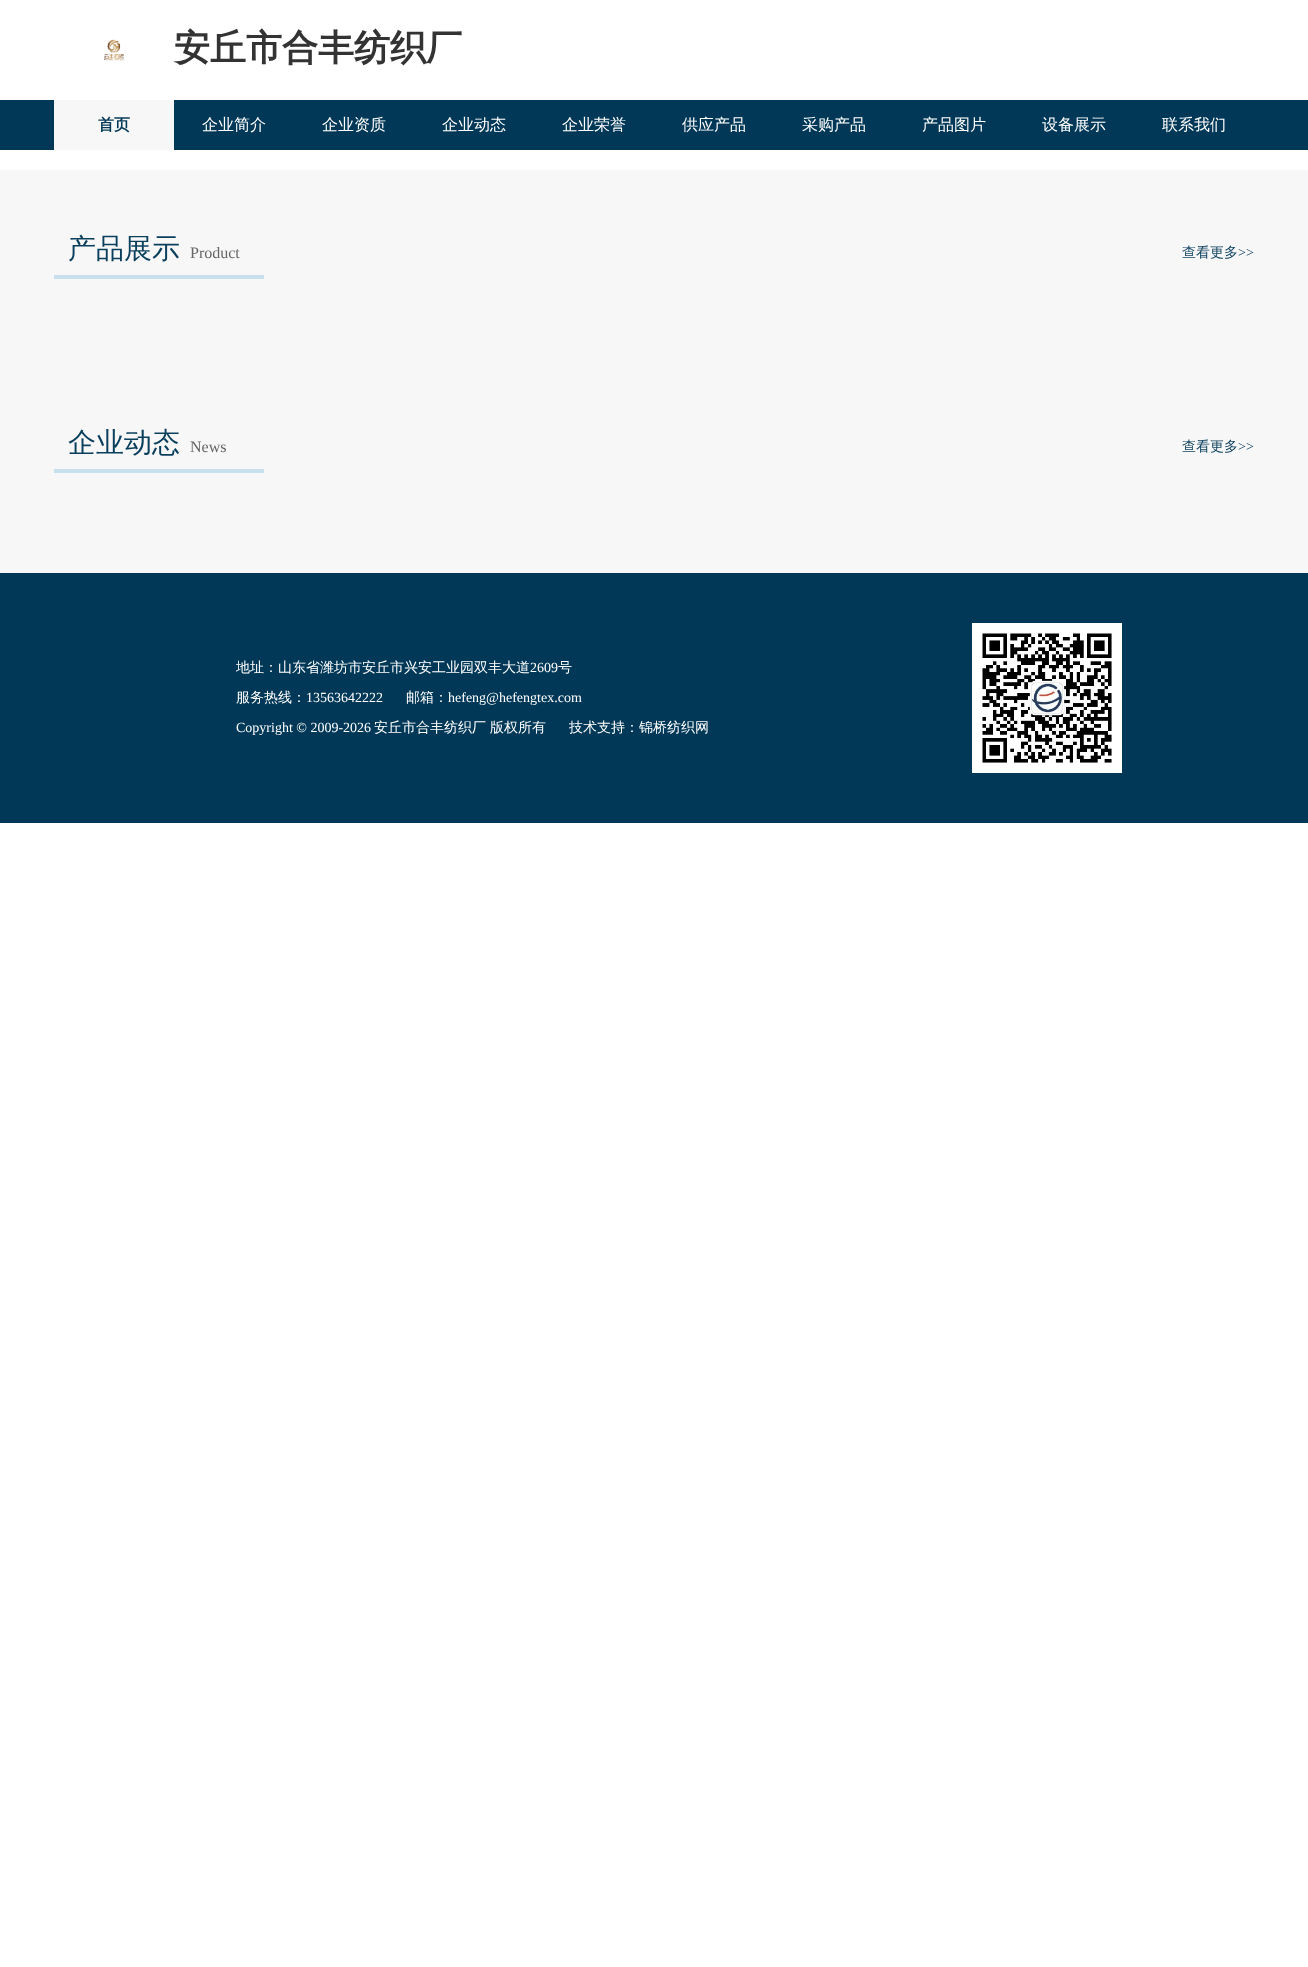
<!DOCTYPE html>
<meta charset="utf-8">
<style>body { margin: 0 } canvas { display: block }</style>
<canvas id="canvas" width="1308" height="1967"></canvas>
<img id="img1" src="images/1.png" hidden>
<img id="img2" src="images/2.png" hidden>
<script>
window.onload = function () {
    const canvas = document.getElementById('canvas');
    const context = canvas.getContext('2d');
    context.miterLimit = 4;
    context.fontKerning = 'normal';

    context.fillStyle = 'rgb(255, 255, 255)';
    context.fillRect(0, 0, 1308, 1967);
    context.drawImage(document.getElementById('img1'), 104, 39, 20, 22);
    context.fillStyle = 'rgb(1, 56, 87)';
    context.fillRect(0, 100, 1308, 50);
    context.fillStyle = 'rgb(247, 247, 247)';
    context.fillRect(54, 100, 120, 50);
    context.fillRect(0, 170, 1308, 403);
    context.fillStyle = 'rgb(200, 224, 238)';
    context.fillRect(54, 275, 210, 4);
    context.fillRect(54, 469, 210, 4);
    context.fillStyle = 'rgb(1, 56, 87)';
    context.fillRect(0, 573, 1308, 250);
    context.drawImage(document.getElementById('img2'), 972, 623, 150, 150);
    context.font = 'bold 36px WenQuanYi Zen Hei';
    context.fillStyle = 'rgb(51, 51, 51)';
    context.fillText('安丘市合丰纺织厂', 174, 60);
    context.font = 'bold 16px WenQuanYi Zen Hei';
    context.fillStyle = 'rgb(1, 56, 87)';
    context.fillText('首页', 98, 130);
    context.font = '500 16px WenQuanYi Zen Hei';
    context.fillStyle = 'rgb(255, 255, 255)';
    context.fillText('企业简介', 202, 130);
    context.fillText('企业资质', 322, 130);
    context.fillText('企业动态', 442, 130);
    context.fillText('企业荣誉', 562, 130);
    context.fillText('供应产品', 682, 130);
    context.fillText('采购产品', 802, 130);
    context.fillText('产品图片', 922, 130);
    context.fillText('设备展示', 1042, 130);
    context.fillText('联系我们', 1162, 130);
    context.font = '500 28px WenQuanYi Zen Hei';
    context.fillStyle = 'rgb(9, 62, 92)';
    context.fillText('产品展示', 68, 258);
    context.font = '16px Liberation Serif';
    context.fillStyle = 'rgb(102, 102, 102)';
    context.fillText('Product', 190, 258);
    context.font = '500 14px WenQuanYi Zen Hei';
    context.fillStyle = 'rgb(9, 62, 92)';
    context.fillText('查看更多', 1182, 257);
    context.font = '14px Liberation Serif';
    context.fillText('>>', 1238, 257);
    context.font = '500 28px WenQuanYi Zen Hei';
    context.fillText('企业动态', 68, 452);
    context.font = '16px Liberation Serif';
    context.fillStyle = 'rgb(102, 102, 102)';
    context.fillText('News', 190, 452);
    context.font = '500 14px WenQuanYi Zen Hei';
    context.fillStyle = 'rgb(9, 62, 92)';
    context.fillText('查看更多', 1182, 451);
    context.font = '14px Liberation Serif';
    context.fillText('>>', 1238, 451);
    context.font = '500 14px WenQuanYi Zen Hei';
    context.fillStyle = 'rgb(255, 255, 255)';
    context.fillText('地址：山东省潍坊市安丘市兴安工业园双丰大道', 236, 672);
    context.font = '14px Liberation Serif';
    context.fillText('2609', 530, 672);
    context.font = '500 14px WenQuanYi Zen Hei';
    context.fillText('号', 558, 672);
    context.fillText('服务热线：', 236, 702);
    context.font = '14px Liberation Serif';
    context.fillText('13563642222', 306, 702);
    context.font = '500 14px WenQuanYi Zen Hei';
    context.fillText('邮箱：', 406, 702);
    context.font = '14px Liberation Serif';
    context.fillText('hefeng@hefengtex.com', 448, 702);
    context.fillText('Copyright © 2009-2026', 236, 732);
    context.font = '500 14px WenQuanYi Zen Hei';
    context.fillText('安丘市合丰纺织厂', 374, 732);
    context.fillText('版权所有', 490, 732);
    context.fillText('技术支持：锦桥纺织网', 569, 732);
};
</script>
